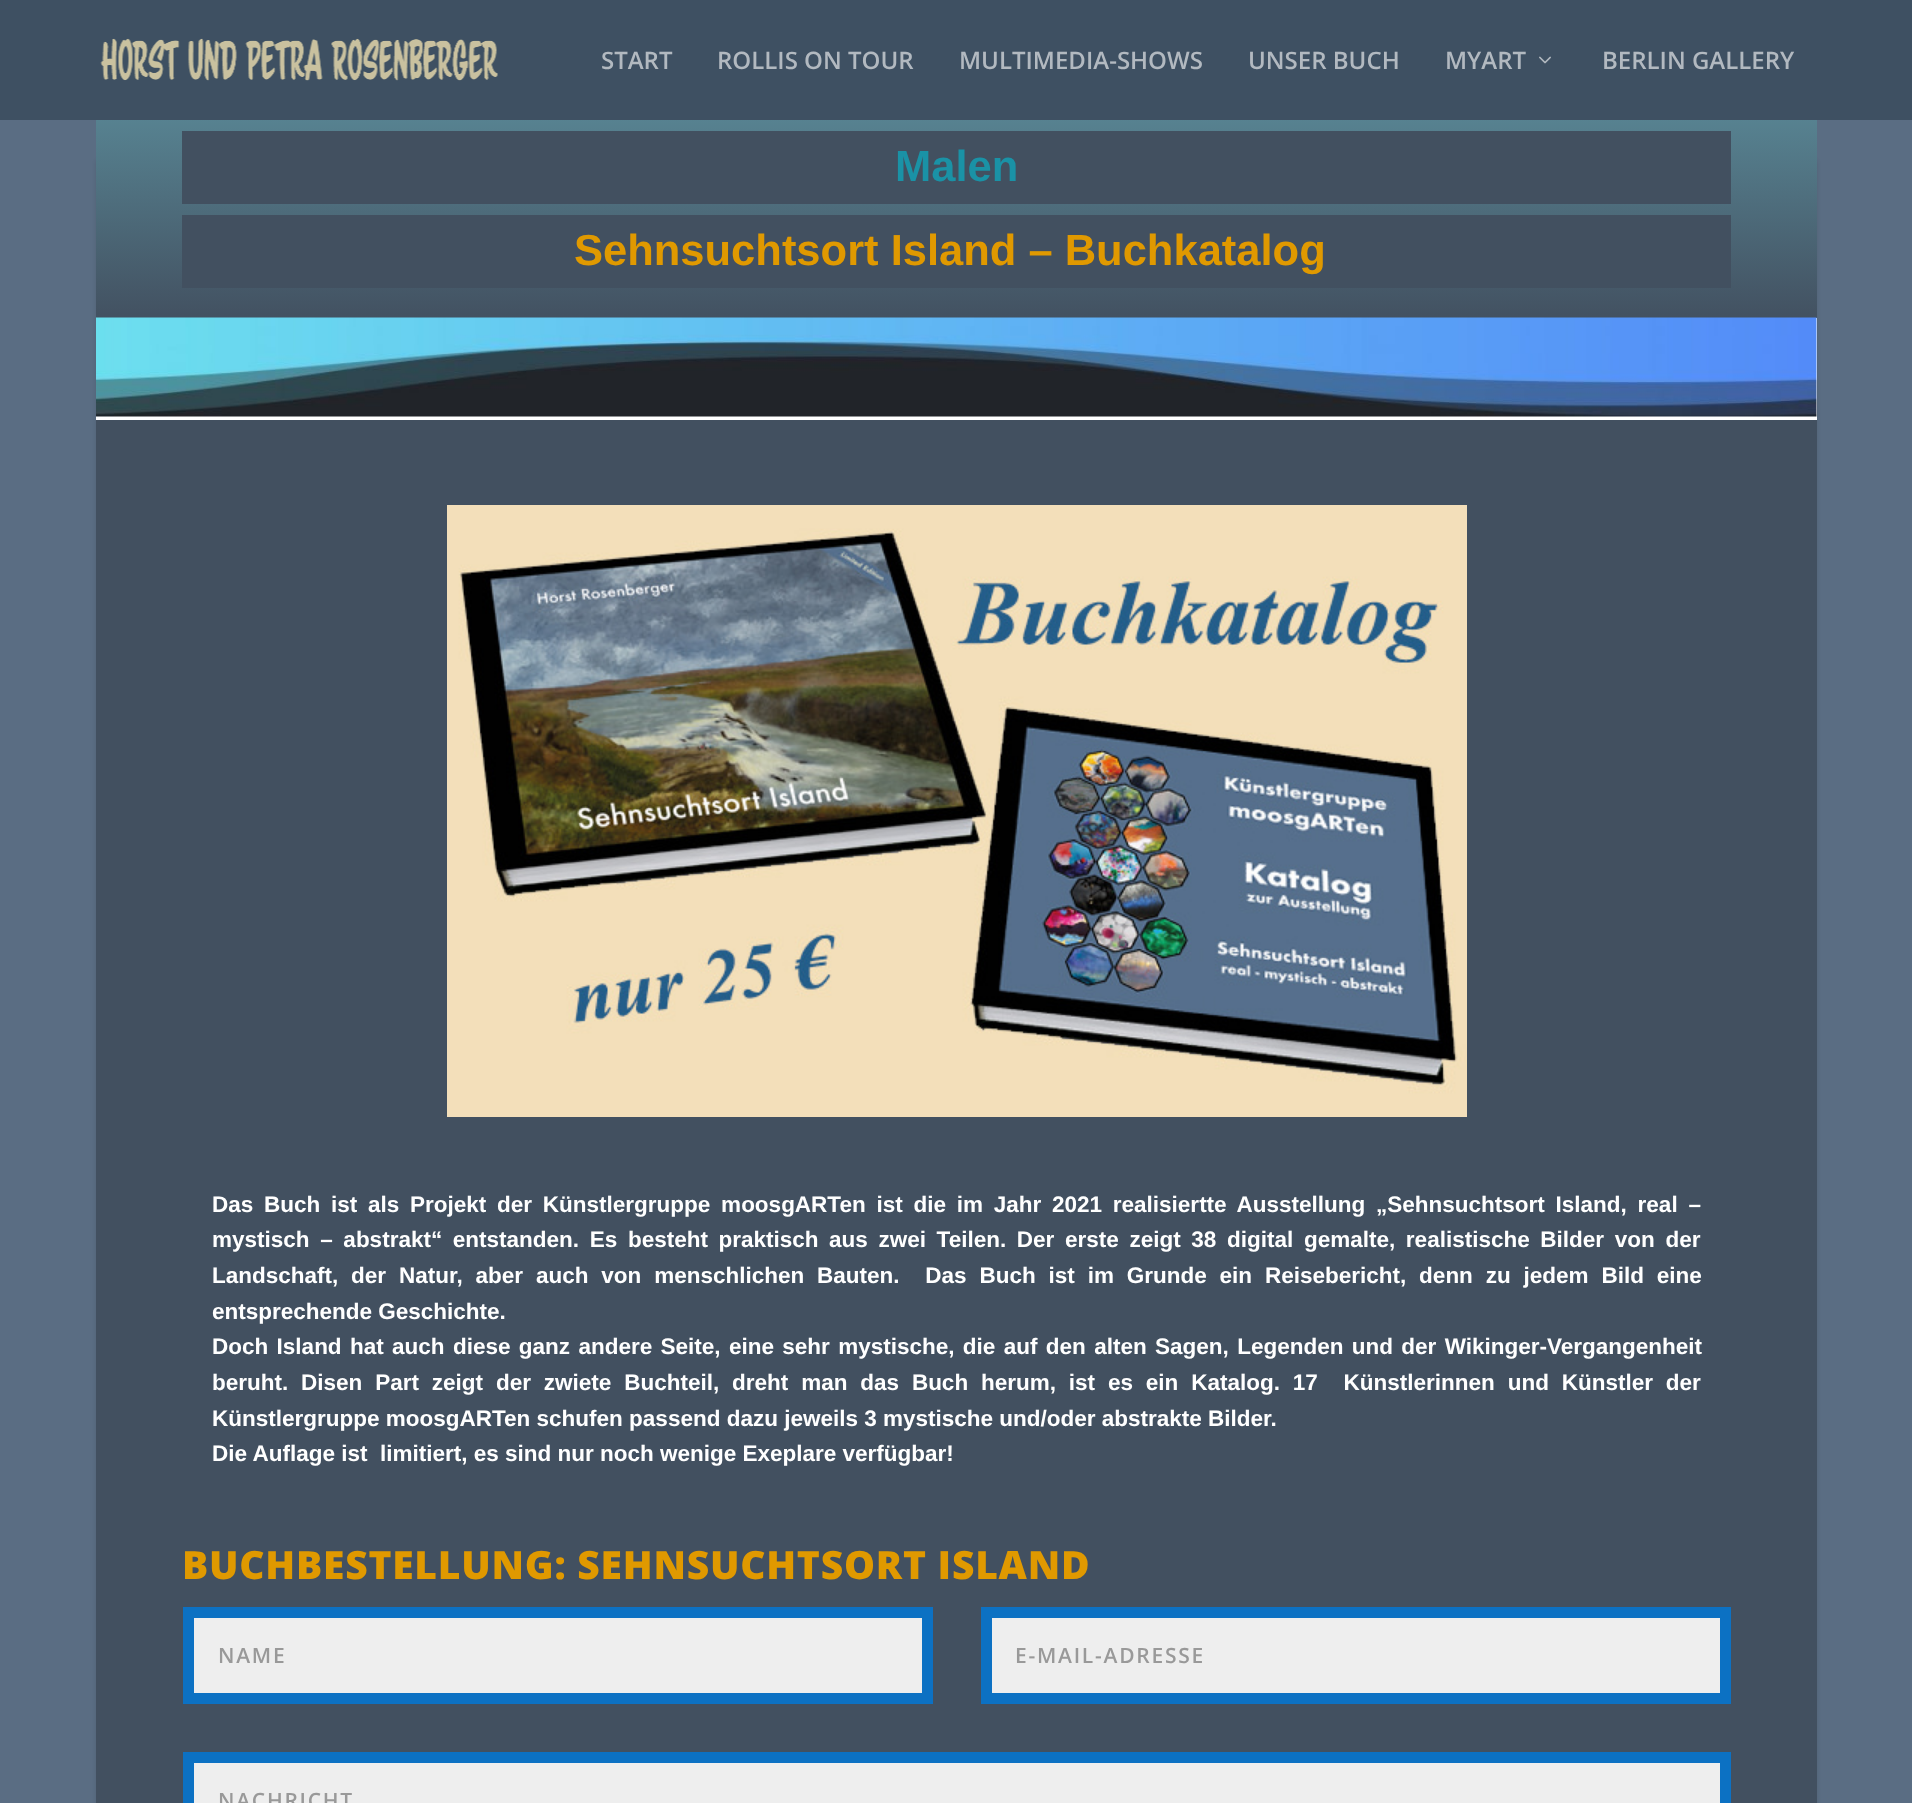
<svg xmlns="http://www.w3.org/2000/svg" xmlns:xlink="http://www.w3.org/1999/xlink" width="1912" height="1803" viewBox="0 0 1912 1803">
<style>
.cls-1{font:600 24px Open Sans;fill:#b2b9c0}
.cls-2{font:bold 43.5px Liberation Sans;fill:#1a92a6}
.cls-3{font:bold 43.5px Liberation Sans;fill:#e09900}
.cls-4{font:bold 22.5px Liberation Sans;fill:#ffffff}
.cls-5{font:800 39px Open Sans;letter-spacing:0.75px;fill:#e09900}
.cls-6{font:600 21px Open Sans;letter-spacing:1.75px;fill:#999999}
</style>
<defs>
<linearGradient id="g1" gradientUnits="userSpaceOnUse" x1="956" y1="57" x2="956" y2="323"><stop offset="0" stop-color="#5d919f"/><stop offset="1" stop-color="#425060"/></linearGradient>
</defs>
<rect width="100%" height="100%" fill="#5a6d83"/>
<rect fill="#3e5062" x="0" y="0" width="1912" height="120"/>
<image xlink:href="image0.png" x="100" y="38" width="398" height="43"/>
<image xlink:href="image1.png" x="1539" y="56" width="12" height="8"/>
<rect fill="#000000" fill-opacity="0.1" filter="blur(2px)" x="96" y="159" width="1721" height="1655" rx="5"/>
<rect fill="url(#g1)" x="96" y="120" width="1721" height="198"/>
<rect fill="#425060" x="182" y="131" width="1549" height="73"/>
<rect fill="#425060" x="182" y="215" width="1549" height="73"/>
<rect fill="#ffffff" x="96" y="318" width="1721" height="102"/>
<image xlink:href="image2.png" x="96" y="317" width="1721" height="100"/>
<rect fill="#425060" x="96" y="420" width="1721" height="1383"/>
<image xlink:href="image3.png" x="447" y="505" width="1020" height="612"/>
<rect fill="#eeeeee" stroke="#0c71c3" stroke-width="11" x="188.5" y="1612.5" width="739" height="86"/>
<rect fill="#eeeeee" stroke="#0c71c3" stroke-width="11" x="986.5" y="1612.5" width="739" height="86"/>
<rect fill="#eeeeee" stroke="#0c71c3" stroke-width="11" x="188.5" y="1757.5" width="1537" height="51"/>
<text class="cls-1" x="601" y="69">START</text>
<text class="cls-1" x="717" y="69">ROLLIS ON TOUR</text>
<text class="cls-1" x="959" y="69">MULTIMEDIA-SHOWS</text>
<text class="cls-1" x="1248" y="69">UNSER BUCH</text>
<text class="cls-1" x="1445" y="69">MYART</text>
<text class="cls-1" x="1602" y="69">BERLIN GALLERY</text>
<text class="cls-2" x="895" y="181">Malen</text>
<text class="cls-3" x="574" y="265">Sehnsuchtsort Island – Buchkatalog</text>
<text class="cls-4"><tspan x="212" y="1212" word-spacing="4.5">Das Buch ist als Projekt der Künstlergruppe moosgARTen ist die im Jahr 2021 realisiertte Ausstellung „Sehnsuchtsort Island, real –</tspan><tspan x="212" y="1247" word-spacing="4.4">mystisch – abstrakt“ entstanden. Es besteht praktisch</tspan></text>
<text class="cls-4" x="829" y="1247" word-spacing="4.4">aus zwei Teilen. Der erste zeigt 38 digital gemalte, realistische Bilder von der</text>
<text class="cls-4" xml:space="preserve"><tspan x="212" y="1283" word-spacing="6.6">Landschaft, der Natur, aber auch von menschlichen Bauten.  Das Buch ist im Grunde ein Reisebericht, denn zu jedem Bild eine</tspan><tspan x="212" y="1319">entsprechende Geschichte.</tspan><tspan x="212" y="1354" word-spacing="2.1">Doch Island hat auch diese ganz andere Seite, eine sehr mystische, die auf den alten Sagen, Legenden und der Wikinger-Vergangenheit</tspan><tspan x="212" y="1390" word-spacing="6.6">beruht. Disen Part zeigt der zwiete Buchteil, dreht man das Buch herum, ist es ein Katalog. 17  Künstlerinnen und Künstler der</tspan><tspan x="212" y="1426">Künstlergruppe moosgARTen schufen passend dazu jeweils 3 mystische und/oder abstrakte Bilder.</tspan><tspan x="212" y="1461">Die Auflage ist  limitiert, es sind nur noch wenige Exeplare verfügbar!</tspan></text>
<text class="cls-5" x="182" y="1579">BUCHBESTELLUNG: SEHNSUCHTSORT ISLAND</text>
<text class="cls-6" x="218" y="1663">NAME</text>
<text class="cls-6" x="1015" y="1663">E-MAIL-ADRESSE</text>
<text class="cls-6" x="218" y="1808">NACHRICHT</text>
</svg>
